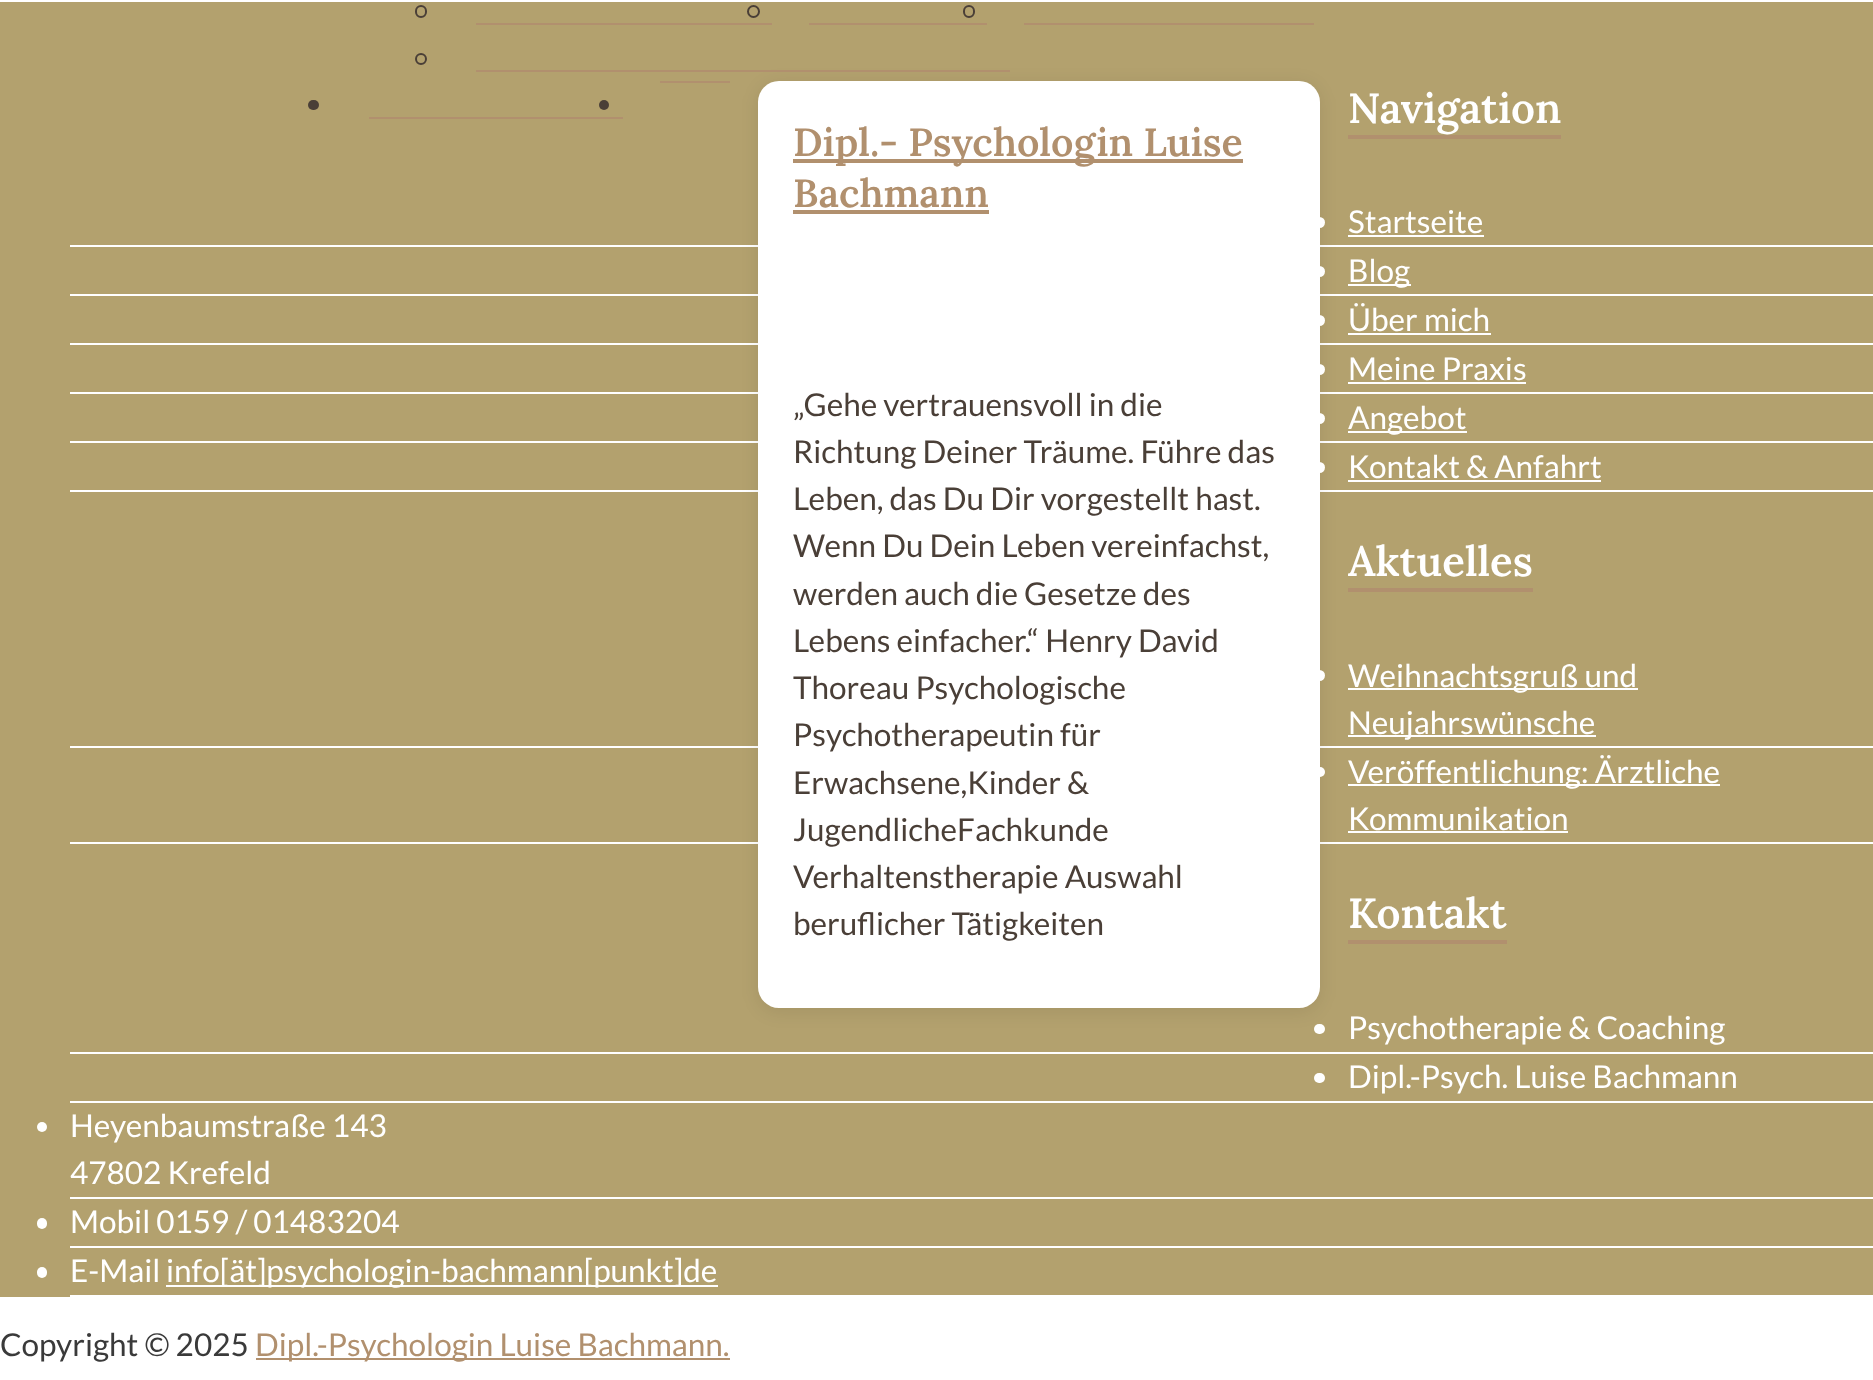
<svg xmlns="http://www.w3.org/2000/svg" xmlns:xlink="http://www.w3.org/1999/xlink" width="1873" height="1380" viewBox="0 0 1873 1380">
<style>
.cls-1{font:600 42px Lora;fill:#ffffff}
.cls-2{font:31.5px Lato;fill:#ffffff}
.cls-3{font:31.5px Lato;fill:#3a3a3a}
.cls-4{font:31.5px Lato;fill:#b1906e}
.cls-5{font:600 39.25px Lora;fill:#b1906e}
.cls-6{font:31.5px Lato;fill:#4a3f37}
</style>
<rect width="100%" height="100%" fill="#ffffff"/>
<rect fill="#b3a16e" x="0" y="2" width="1873" height="1295"/>
<rect fill="none" stroke="#4a3f37" stroke-width="2" x="416" y="6" width="10" height="11" rx="5"/>
<rect fill="#b1906e" x="476" y="23" width="296" height="2"/>
<circle fill="none" stroke="#4a3f37" stroke-width="2" cx="753.5" cy="11.5" r="5.5"/>
<rect fill="#b1906e" x="809" y="23" width="178" height="2"/>
<rect fill="none" stroke="#4a3f37" stroke-width="2" x="964" y="6" width="10" height="11" rx="5"/>
<rect fill="#b1906e" x="1024" y="23" width="290" height="2"/>
<circle fill="none" stroke="#4a3f37" stroke-width="2" cx="421" cy="59" r="5"/>
<rect fill="#ffffff" x="70" y="245" width="1803" height="2"/>
<rect fill="#ffffff" x="70" y="294" width="1803" height="2"/>
<rect fill="#ffffff" x="70" y="343" width="1803" height="2"/>
<rect fill="#ffffff" x="70" y="392" width="1803" height="2"/>
<rect fill="#ffffff" x="70" y="441" width="1803" height="2"/>
<rect fill="#ffffff" x="70" y="490" width="1803" height="2"/>
<rect fill="#ffffff" x="70" y="746" width="1803" height="2"/>
<rect fill="#ffffff" x="70" y="842" width="1803" height="2"/>
<rect fill="#000000" fill-opacity="0.08" filter="blur(9px)" x="758" y="84" width="562" height="928" rx="21"/>
<rect fill="#b1906e" x="476" y="70" width="534" height="2"/>
<rect fill="#4a3f37" x="308" y="100" width="11" height="10" rx="5"/>
<rect fill="#b1906e" x="369" y="117" width="254" height="2"/>
<rect fill="#b1906e" x="660" y="81" width="70" height="2"/>
<circle fill="#4a3f37" cx="604" cy="105" r="5"/>
<rect fill="#b1906e" x="1348" y="135" width="213" height="4"/>
<rect fill="#ffffff" x="758" y="81" width="562" height="927" rx="21"/>
<circle fill="#ffffff" cx="1319.5" cy="222.5" r="5.5"/>
<rect fill="#ffffff" x="1348" y="235" width="136" height="2"/>
<circle fill="#ffffff" cx="1319.5" cy="271.5" r="5.5"/>
<rect fill="#ffffff" x="1348" y="284" width="63" height="2"/>
<circle fill="#ffffff" cx="1319.5" cy="320.5" r="5.5"/>
<rect fill="#ffffff" x="1348" y="333" width="143" height="2"/>
<circle fill="#ffffff" cx="1319.5" cy="369.5" r="5.5"/>
<rect fill="#ffffff" x="1348" y="382" width="178" height="2"/>
<circle fill="#ffffff" cx="1319.5" cy="418.5" r="5.5"/>
<rect fill="#ffffff" x="1348" y="431" width="119" height="2"/>
<circle fill="#ffffff" cx="1319.5" cy="467.5" r="5.5"/>
<rect fill="#ffffff" x="1348" y="480" width="253" height="2"/>
<rect fill="#b1906e" x="1348" y="588" width="185" height="4"/>
<circle fill="#ffffff" cx="1319.5" cy="675.5" r="5.5"/>
<rect fill="#ffffff" x="1348" y="688" width="290" height="2"/>
<rect fill="#ffffff" x="1348" y="735" width="248" height="2"/>
<rect fill="#ffffff" x="1314" y="767" width="11" height="10" rx="5"/>
<rect fill="#ffffff" x="1348" y="784" width="372" height="2"/>
<rect fill="#ffffff" x="1348" y="831" width="220" height="2"/>
<rect fill="#b1906e" x="1348" y="940" width="159" height="4"/>
<rect fill="#ffffff" x="70" y="1052" width="1803" height="2"/>
<rect fill="#ffffff" x="1314" y="1024" width="11" height="10" rx="5"/>
<rect fill="#ffffff" x="70" y="1101" width="1803" height="2"/>
<rect fill="#ffffff" x="1314" y="1073" width="11" height="10" rx="5"/>
<rect fill="#ffffff" x="70" y="1197" width="1803" height="2"/>
<circle fill="#ffffff" cx="42" cy="1127" r="5"/>
<rect fill="#ffffff" x="70" y="1246" width="1803" height="2"/>
<rect fill="#ffffff" x="37" y="1218" width="10" height="11" rx="5"/>
<rect fill="#ffffff" x="70" y="1295" width="1803" height="2"/>
<rect fill="#ffffff" x="37" y="1267" width="10" height="11" rx="5"/>
<rect fill="#ffffff" x="166" y="1285" width="552" height="2"/>
<rect fill="#b1906e" x="256" y="1358" width="474" height="2"/>
<rect fill="#b1906e" x="793" y="159" width="450" height="4"/>
<rect fill="#b1906e" x="793" y="210" width="196" height="4"/>
<text class="cls-1" x="1348" y="123">Navigation</text>
<text class="cls-2"><tspan x="1348" y="233">Startseite</tspan><tspan x="1348" y="282">Blog</tspan><tspan x="1348" y="331">Über mich</tspan><tspan x="1348" y="380">Meine Praxis</tspan><tspan x="1348" y="429">Angebot</tspan><tspan x="1348" y="478">Kontakt &amp; Anfahrt</tspan></text>
<text class="cls-1" x="1348" y="576">Aktuelles</text>
<text class="cls-2"><tspan x="1348" y="687">Weihnachtsgruß und</tspan><tspan x="1348" y="734">Neujahrswünsche</tspan><tspan x="1348" y="783">Veröffentlichung: Ärztliche</tspan><tspan x="1348" y="830">Kommunikation</tspan></text>
<text class="cls-1" x="1348" y="928">Kontakt</text>
<text class="cls-2"><tspan x="1348" y="1039">Psychotherapie &amp; Coaching</tspan><tspan x="1348" y="1088">Dipl.-Psych. Luise Bachmann</tspan></text>
<text class="cls-2"><tspan x="70" y="1137">Heyenbaumstraße 143</tspan><tspan x="70" y="1184">47802 Krefeld</tspan><tspan x="70" y="1233">Mobil 0159 / 01483204</tspan><tspan x="70" y="1282">E-Mail</tspan></text>
<text class="cls-2" x="166" y="1282">info[ät]psychologin-bachmann[punkt]de</text>
<text class="cls-3" x="0" y="1356">Copyright © 2025</text>
<text class="cls-4" x="255" y="1356">Dipl.-Psychologin Luise Bachmann.</text>
<text class="cls-5"><tspan x="793" y="156">Dipl.- Psychologin Luise</tspan><tspan x="793" y="207">Bachmann</tspan></text>
<text class="cls-6"><tspan x="793" y="416">„Gehe vertrauensvoll in die</tspan><tspan x="793" y="463">Richtung Deiner Träume. Führe das</tspan><tspan x="793" y="510">Leben, das Du Dir vorgestellt hast.</tspan><tspan x="793" y="557">Wenn Du Dein Leben vereinfachst,</tspan><tspan x="793" y="605">werden auch die Gesetze des</tspan><tspan x="793" y="652">Lebens einfacher.“ Henry David</tspan><tspan x="793" y="699">Thoreau Psychologische</tspan><tspan x="793" y="746">Psychotherapeutin für</tspan><tspan x="793" y="794">Erwachsene,Kinder &amp;</tspan><tspan x="793" y="841">JugendlicheFachkunde</tspan><tspan x="793" y="888">Verhaltenstherapie Auswahl</tspan><tspan x="793" y="935">beruflicher Tätigkeiten</tspan></text>
</svg>
